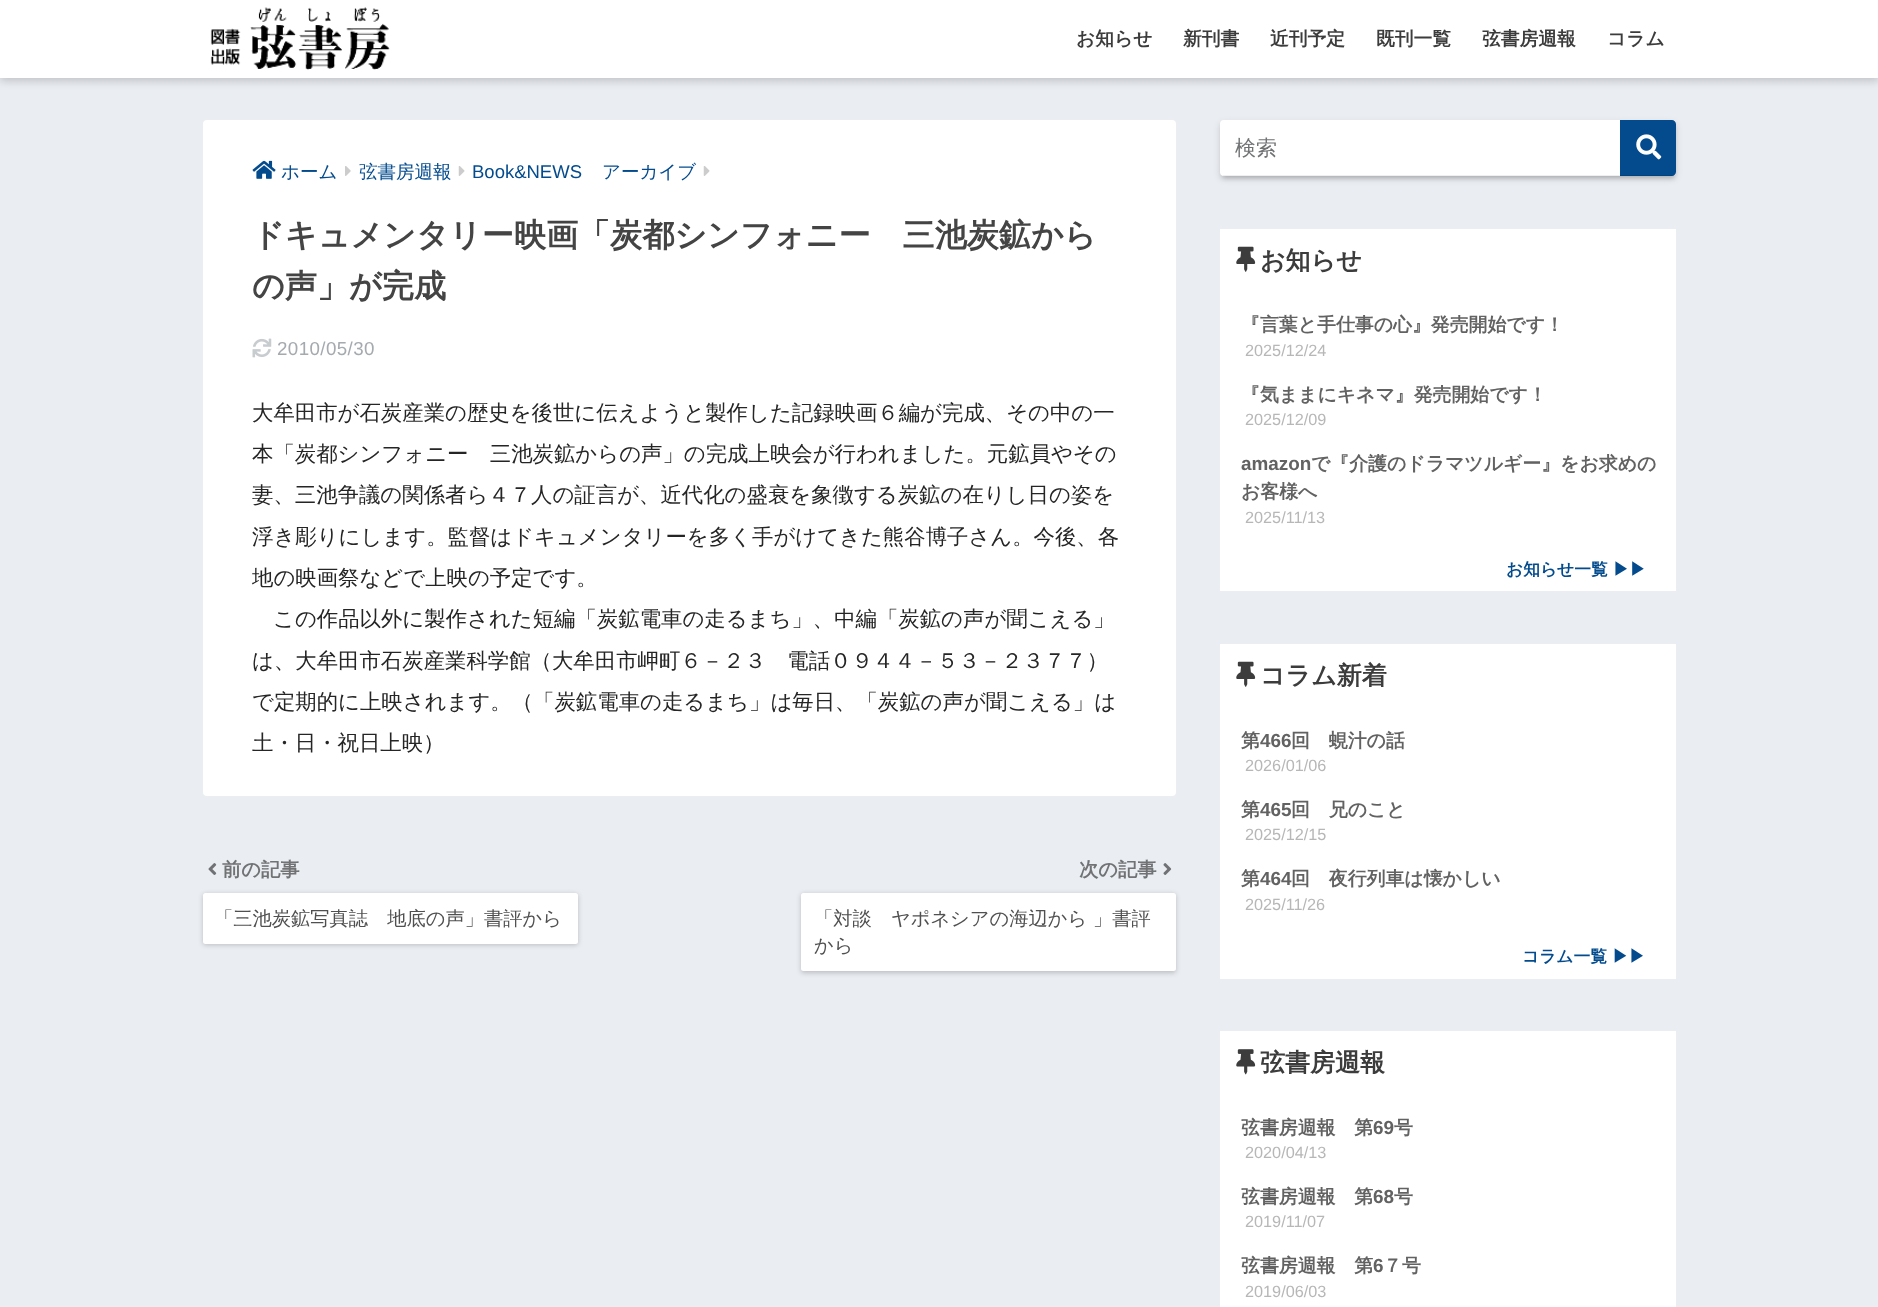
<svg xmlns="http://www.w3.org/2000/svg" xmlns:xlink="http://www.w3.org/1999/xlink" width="1878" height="1307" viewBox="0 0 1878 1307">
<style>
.cls-1{font:bold 18.75px WenQuanYi Zen Hei;fill:#3c3c3c}
.cls-2{font:500 18.5px WenQuanYi Zen Hei;fill:#034b8d}
.cls-3{font:18.5px Liberation Sans;fill:#034b8d}
.cls-4{font:bold 32.1px WenQuanYi Zen Hei;fill:#444444}
.cls-5{font:18.75px Liberation Sans;letter-spacing:0.4px;fill:#a5aaaf}
.cls-6{font:500 21.4px WenQuanYi Zen Hei;fill:#252525}
.cls-7{font:bold 19.25px WenQuanYi Zen Hei;fill:#707274}
.cls-8{font:500 19.25px WenQuanYi Zen Hei;fill:#505050}
.cls-9{font:500 21px WenQuanYi Zen Hei;fill:#707274}
.cls-10{font:bold 25px WenQuanYi Zen Hei;fill:#3c3c3c}
.cls-11{font:bold 18.9px WenQuanYi Zen Hei;fill:#626262}
.cls-12{font:16.25px Liberation Sans;fill:#b7b7b7}
.cls-13{font:bold 18.9px Liberation Sans;fill:#626262}
.cls-14{font:bold 16.75px WenQuanYi Zen Hei;fill:#034b8d}
</style>
<rect width="100%" height="100%" fill="#eaedf2"/>
<rect fill="#000000" fill-opacity="0.18" filter="blur(4px)" x="0" y="4" width="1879" height="77"/>
<rect fill="#ffffff" x="0" y="0" width="1878" height="78"/>
<image xlink:href="image0.png" x="210" y="7" width="180" height="63"/>
<rect fill="#ffffff" x="203" y="120" width="973" height="676" rx="4"/>
<image xlink:href="image1.png" x="252" y="160" width="24" height="19"/>
<image xlink:href="image2.png" x="345" y="166" width="6" height="10"/>
<image xlink:href="image3.png" x="458" y="166" width="7" height="10"/>
<image xlink:href="image3.png" x="703" y="166" width="7" height="10"/>
<image xlink:href="image4.png" x="252" y="338" width="20" height="20"/>
<image xlink:href="image5.png" x="208" y="863" width="9" height="12"/>
<rect fill="#000000" fill-opacity="0.2" filter="blur(2.5px)" x="203" y="894" width="375" height="51" rx="2.5"/>
<rect fill="#ffffff" x="203" y="893" width="375" height="51" rx="2.5"/>
<image xlink:href="image6.png" x="1163" y="863" width="9" height="12"/>
<rect fill="#000000" fill-opacity="0.2" filter="blur(2.5px)" x="801" y="894" width="375" height="79" rx="2.5"/>
<rect fill="#ffffff" x="801" y="893" width="375" height="78" rx="2.5"/>
<rect fill="#000000" fill-opacity="0.15" filter="blur(2px)" x="1223" y="126" width="451" height="52" rx="1"/>
<rect fill="#000000" fill-opacity="0.15" filter="blur(3px)" x="1220" y="123" width="456" height="56" rx="4"/>
<rect fill="#ffffff" x="1220" y="120" width="456" height="56" rx="4"/>
<rect fill="#efefef" x="1223" y="175" width="452" height="1"/>
<path fill="#034b8d" d="M1620 120H1672C1674 120 1676 122 1676 124V172C1676 174 1674 176 1672 176H1620Z"/>
<rect fill="#000000" fill-opacity="0.1" x="1620" y="175" width="55" height="1"/>
<image xlink:href="image7.png" x="1636" y="134" width="26" height="26"/>
<rect fill="#ffffff" x="1220" y="229" width="456" height="362"/>
<image xlink:href="image8.png" x="1236" y="246" width="20" height="26"/>
<rect fill="#ffffff" x="1220" y="644" width="456" height="335"/>
<image xlink:href="image8.png" x="1236" y="661" width="20" height="26"/>
<rect fill="#ffffff" x="1220" y="1031" width="456" height="276"/>
<image xlink:href="image9.png" x="1236" y="1049" width="20" height="26"/>
<text class="cls-1" x="1076" y="45">お知らせ</text>
<text class="cls-1" x="1183" y="45">新刊書</text>
<text class="cls-1" x="1270" y="45">近刊予定</text>
<text class="cls-1" x="1376" y="45">既刊一覧</text>
<text class="cls-1" x="1482" y="45">弦書房週報</text>
<text class="cls-1" x="1607" y="45">コラム</text>
<text class="cls-2" x="281" y="178">ホーム</text>
<text class="cls-2" x="359" y="178">弦書房週報</text>
<text class="cls-3" x="472" y="178">Book&amp;NEWS</text>
<text class="cls-2" x="602" y="178">アーカイブ</text>
<text class="cls-4"><tspan x="252" y="246">ドキュメンタリー映画「炭都シンフォニー　三池炭鉱から</tspan><tspan x="252" y="297">の声」が完成</tspan></text>
<text class="cls-5" x="277" y="355">2010/05/30</text>
<text class="cls-6"><tspan x="252" y="420">大牟田市が石炭産業の歴史を後世に伝えようと製作した記録映画６編が完成、その中の一</tspan><tspan x="252" y="461">本「炭都シンフォニー　三池炭鉱からの声」の完成上映会が行われました。元鉱員やその</tspan><tspan x="252" y="502">妻、三池争議の関係者ら４７人の証言が、近代化の盛衰を象徴する炭鉱の在りし日の姿を</tspan><tspan x="252" y="544">浮き彫りにします。監督はドキュメンタリーを多く手がけてきた熊谷博子さん。今後、各</tspan><tspan x="252" y="585">地の映画祭などで上映の予定です。</tspan></text>
<text class="cls-6" x="273" y="626">この作品以外に製作された短編「炭鉱電車の走るまち」、中編「炭鉱の声が聞こえる」</text>
<text class="cls-6"><tspan x="252" y="668">は、大牟田市石炭産業科学館（大牟田市岬町６－２３　電話０９４４－５３－２３７７）</tspan><tspan x="252" y="709">で定期的に上映されます。（「炭鉱電車の走るまち」は毎日、「炭鉱の声が聞こえる」は</tspan><tspan x="252" y="750">土・日・祝日上映）</tspan></text>
<text class="cls-7" x="222" y="876">前の記事</text>
<text class="cls-8" x="214" y="925">「三池炭鉱写真誌　地底の声」書評から</text>
<text class="cls-7" x="1079" y="876">次の記事</text>
<text class="cls-8"><tspan x="814" y="925">「対談　ヤポネシアの海辺から 」書評</tspan><tspan x="814" y="952">から</tspan></text>
<text class="cls-9" x="1235" y="155">検索</text>
<text class="cls-10" x="1260" y="269">お知らせ</text>
<text class="cls-11" x="1241" y="331">『言葉と手仕事の心』発売開始です！</text>
<text class="cls-12" x="1245" y="356">2025/12/24</text>
<text class="cls-11" x="1241" y="401">『気ままにキネマ』発売開始です！</text>
<text class="cls-12" x="1245" y="425">2025/12/09</text>
<text class="cls-13" x="1241" y="470">amazon</text>
<text class="cls-11" x="1311" y="470">で『介護のドラマツルギー』をお求めの</text>
<text class="cls-11" x="1241" y="498">お客様へ</text>
<text class="cls-12" x="1245" y="523">2025/11/13</text>
<text class="cls-14" x="1506" y="575">お知らせ一覧 ▶▶</text>
<text class="cls-10" x="1260" y="684">コラム新着</text>
<text class="cls-11" x="1241" y="747">第</text>
<text class="cls-13" x="1260" y="747">466</text>
<text class="cls-11" x="1291" y="747">回　蜆汁の話</text>
<text class="cls-12" x="1245" y="771">2026/01/06</text>
<text class="cls-11" x="1241" y="816">第</text>
<text class="cls-13" x="1260" y="816">465</text>
<text class="cls-11" x="1291" y="816">回　兄のこと</text>
<text class="cls-12" x="1245" y="840">2025/12/15</text>
<text class="cls-11" x="1241" y="885">第</text>
<text class="cls-13" x="1260" y="885">464</text>
<text class="cls-11" x="1291" y="885">回　夜行列車は懐かしい</text>
<text class="cls-12" x="1245" y="910">2025/11/26</text>
<text class="cls-14" x="1522" y="962">コラム一覧 ▶▶</text>
<text class="cls-10" x="1260" y="1071">弦書房週報</text>
<text class="cls-11" x="1241" y="1134">弦書房週報　第</text>
<text class="cls-13" x="1373" y="1134">69</text>
<text class="cls-11" x="1394" y="1134">号</text>
<text class="cls-12" x="1245" y="1158">2020/04/13</text>
<text class="cls-11" x="1241" y="1203">弦書房週報　第</text>
<text class="cls-13" x="1373" y="1203">68</text>
<text class="cls-11" x="1394" y="1203">号</text>
<text class="cls-12" x="1245" y="1227">2019/11/07</text>
<text class="cls-11" x="1241" y="1272">弦書房週報　第</text>
<text class="cls-13" x="1373" y="1272">6</text>
<text class="cls-11" x="1383" y="1272">７号</text>
<text class="cls-12" x="1245" y="1297">2019/06/03</text>
</svg>
